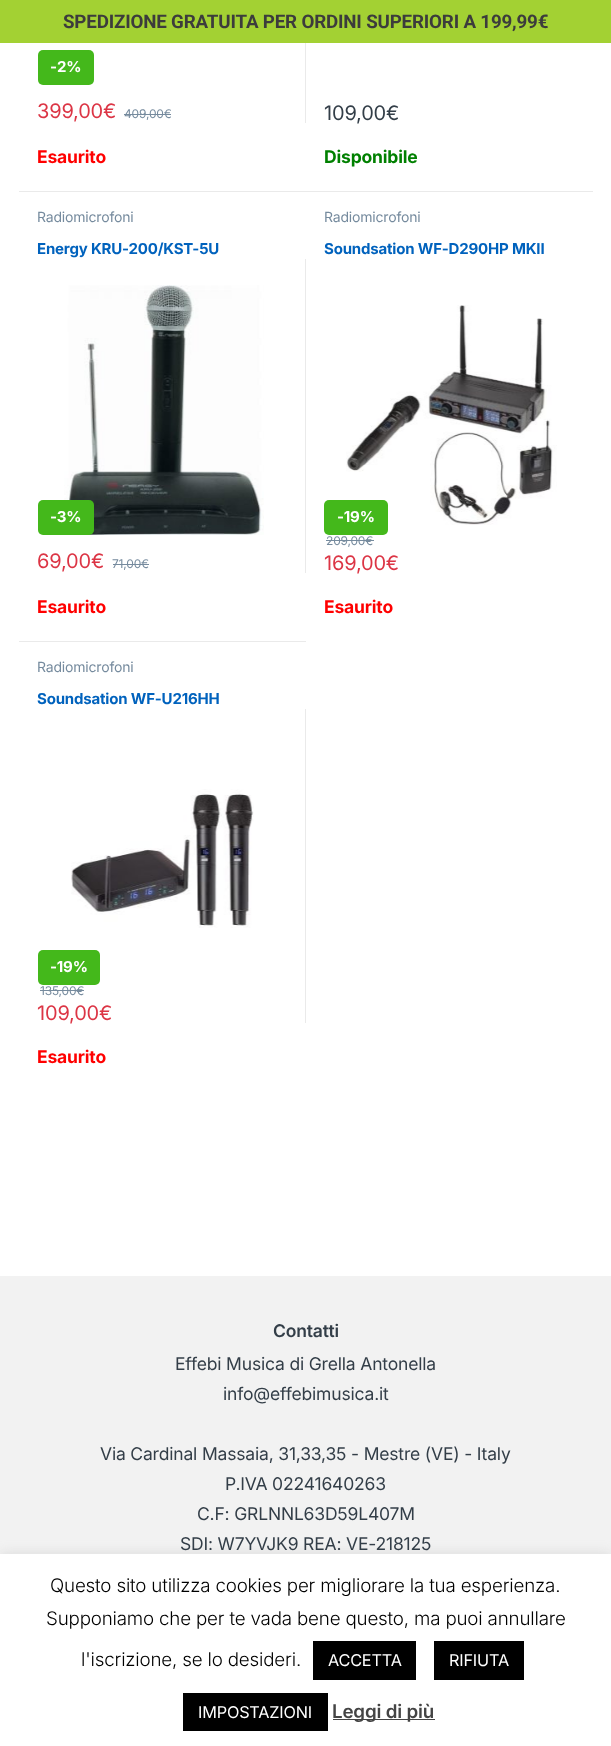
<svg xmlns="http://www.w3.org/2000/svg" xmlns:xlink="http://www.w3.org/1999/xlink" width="611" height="1746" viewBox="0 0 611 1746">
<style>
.cls-1{font:bold 18.75px Roboto;letter-spacing:-0.18px;fill:#3c3c3c}
.cls-2{font:bold 15px Inter;letter-spacing:-0.18px;fill:#ffffff}
.cls-3{font:20px Inter;letter-spacing:-0.18px;fill:#dc3545}
.cls-4{font:12px Inter;letter-spacing:-0.18px;fill:#768b9e}
.cls-5{font:bold 17.5px Inter;letter-spacing:-0.18px;fill:#ff0000}
.cls-6{font:20px Inter;letter-spacing:-0.18px;fill:#333e48}
.cls-7{font:bold 17.5px Inter;letter-spacing:-0.18px;fill:#008000}
.cls-8{font:14px Inter;letter-spacing:-0.18px;fill:#768b9e}
.cls-9{font:bold 15px Inter;letter-spacing:-0.18px;fill:#0062bd}
.cls-10{font:600 17.5px Inter;letter-spacing:-0.18px;fill:#333e48}
.cls-11{font:17.5px Inter;letter-spacing:-0.18px;fill:#333e48}
.cls-12{font:300 18.75px Inter;letter-spacing:-0.18px;fill:#000000}
.cls-13{font:16.25px Inter;letter-spacing:-0.18px;fill:#ffffff}
.cls-14{font:600 18.75px Inter;letter-spacing:-0.18px;fill:#444444}
</style>
<rect width="100%" height="100%" fill="#ffffff"/>
<rect fill="#a3d133" x="0" y="0" width="611" height="43"/>
<rect fill="#eaeaea" x="19" y="191" width="574" height="1"/>
<rect fill="#44b81b" x="38" y="50" width="56" height="35" rx="5"/>
<rect fill="#768b9e" x="124" y="114" width="47" height="1"/>
<rect fill="#eaeaea" x="305" y="43" width="1" height="80"/>
<rect fill="#eaeaea" x="19" y="641" width="287" height="1"/>
<image xlink:href="image0.png" x="64" y="285" width="200" height="250"/>
<rect fill="#44b81b" x="38" y="500" width="56" height="35" rx="5"/>
<rect fill="#768b9e" x="113" y="564" width="36" height="1"/>
<rect fill="#eaeaea" x="305" y="259" width="1" height="314"/>
<image xlink:href="image1.png" x="346" y="305" width="211" height="220"/>
<rect fill="#44b81b" x="324" y="500" width="64" height="35" rx="5"/>
<rect fill="#768b9e" x="326" y="540" width="48" height="1"/>
<image xlink:href="image2.png" x="71" y="789" width="183" height="139"/>
<rect fill="#44b81b" x="38" y="950" width="62" height="35" rx="5"/>
<rect fill="#768b9e" x="40" y="990" width="44" height="1"/>
<rect fill="#eaeaea" x="305" y="709" width="1" height="314"/>
<rect fill="#f2f2f2" x="0" y="1276" width="611" height="278"/>
<rect fill="#acabab" fill-opacity="0.3" filter="blur(6px)" x="0" y="1553" width="611" height="192"/>
<rect fill="#ffffff" x="0" y="1554" width="611" height="192"/>
<rect fill="#000000" x="313" y="1641" width="103" height="39"/>
<rect fill="#000000" x="434" y="1641" width="90" height="39"/>
<rect fill="#000000" x="183" y="1693" width="145" height="38"/>
<rect fill="#444444" x="333" y="1719" width="102" height="1"/>
<text class="cls-1" x="63" y="28">SPEDIZIONE GRATUITA PER ORDINI SUPERIORI A 199,99€</text>
<text class="cls-2" x="50" y="72">-</text>
<text class="cls-2" x="57" y="72">2%</text>
<text class="cls-3" x="37" y="118">399,00€</text>
<text class="cls-4" x="124" y="118">409,00€</text>
<text class="cls-5" x="37" y="163">Esaurito</text>
<text class="cls-6" x="324" y="120">109,00€</text>
<text class="cls-7" x="324" y="163">Disponibile</text>
<text class="cls-8" x="37" y="222">Radiomicrofoni</text>
<text class="cls-9" x="37" y="254">Energy KRU-200/KST-5U</text>
<text class="cls-2" x="50" y="522">-3%</text>
<text class="cls-3" x="37" y="568">69,00€</text>
<text class="cls-4" x="112" y="568">71,00€</text>
<text class="cls-5" x="37" y="613">Esaurito</text>
<text class="cls-8" x="324" y="222">Radiomicrofoni</text>
<text class="cls-9" x="324" y="254">Soundsation WF-D290HP MKII</text>
<text class="cls-2" x="337" y="522">-19%</text>
<text class="cls-4" x="326" y="545">209,00€</text>
<text class="cls-3" x="324" y="570">169,00€</text>
<text class="cls-5" x="324" y="613">Esaurito</text>
<text class="cls-8" x="37" y="672">Radiomicrofoni</text>
<text class="cls-9" x="37" y="704">Soundsation WF-U216HH</text>
<text class="cls-2" x="50" y="972">-19%</text>
<text class="cls-4" x="40" y="995">135,00€</text>
<text class="cls-3" x="37" y="1020">109,00€</text>
<text class="cls-5" x="37" y="1063">Esaurito</text>
<text class="cls-10" x="273" y="1337">Contatti</text>
<text class="cls-11" x="175" y="1370">Effebi Musica di Grella Antonella</text>
<text class="cls-11" x="223" y="1400">info@effebimusica.it</text>
<text class="cls-11" x="100" y="1460">Via Cardinal Massaia, 31,33,35 - Mestre (VE) - Italy</text>
<text class="cls-11" x="225" y="1490">P.IVA 02241640263</text>
<text class="cls-11" x="197" y="1520">C.F: GRLNNL63D59L407M</text>
<text class="cls-11" x="180" y="1550">SDI: W7YVJK9 REA: VE-218125</text>
<text class="cls-12" x="50" y="1592">Questo sito utilizza cookies per migliorare la tua esperienza.</text>
<text class="cls-12" x="46" y="1625">Supponiamo che per te vada bene questo, ma puoi annullare</text>
<text class="cls-12" x="81" y="1666">l'iscrizione, se lo desideri.</text>
<text class="cls-13" x="328" y="1666">ACCETTA</text>
<text class="cls-13" x="449" y="1666">RIFIUTA</text>
<text class="cls-13" x="198" y="1718">IMPOSTAZIONI</text>
<text class="cls-14" x="332" y="1718">Leggi di più</text>
</svg>
